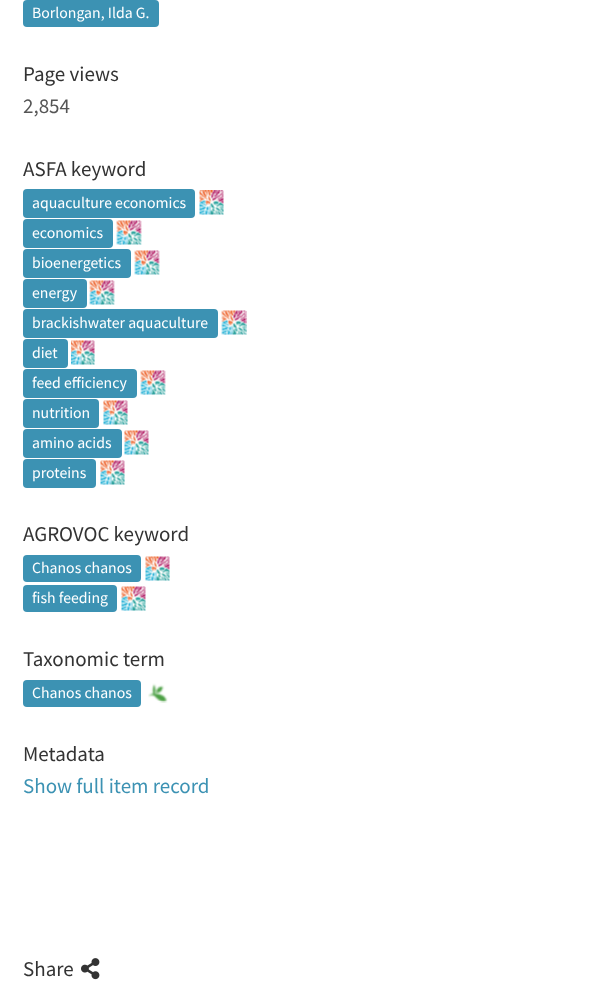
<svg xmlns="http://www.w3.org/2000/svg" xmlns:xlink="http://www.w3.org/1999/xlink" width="596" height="996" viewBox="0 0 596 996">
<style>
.cls-1{font:15.75px Source Sans Pro;fill:#ffffff}
.cls-2{font:21px Source Sans Pro;fill:#333333}
.cls-3{font:21px Source Sans Pro;fill:#555555}
.cls-4{font:21px Source Sans Pro;fill:#3c92b3}
</style>
<rect width="100%" height="100%" fill="#ffffff"/>
<rect fill="#3c92b3" x="23" y="0" width="136" height="27" rx="4"/>
<rect fill="#3c92b3" x="23" y="189" width="172" height="29" rx="4"/>
<image xlink:href="image0.png" x="199" y="190" width="25" height="25"/>
<rect fill="#3c92b3" x="23" y="219" width="90" height="29" rx="4"/>
<image xlink:href="image1.png" x="116" y="220" width="26" height="25"/>
<rect fill="#3c92b3" x="23" y="249" width="108" height="29" rx="4"/>
<image xlink:href="image1.png" x="134" y="250" width="26" height="25"/>
<rect fill="#3c92b3" x="23" y="279" width="64" height="29" rx="4"/>
<image xlink:href="image1.png" x="89" y="280" width="26" height="25"/>
<rect fill="#3c92b3" x="23" y="309" width="195" height="29" rx="4"/>
<image xlink:href="image2.png" x="221" y="310" width="26" height="25"/>
<rect fill="#3c92b3" x="23" y="339" width="45" height="29" rx="4"/>
<image xlink:href="image3.png" x="71" y="340" width="24" height="25"/>
<rect fill="#3c92b3" x="23" y="369" width="114" height="29" rx="4"/>
<image xlink:href="image1.png" x="140" y="370" width="26" height="25"/>
<rect fill="#3c92b3" x="23" y="399" width="76" height="29" rx="4"/>
<image xlink:href="image4.png" x="103" y="400" width="25" height="25"/>
<rect fill="#3c92b3" x="23" y="429" width="99" height="29" rx="4"/>
<image xlink:href="image4.png" x="124" y="430" width="25" height="25"/>
<rect fill="#3c92b3" x="23" y="459" width="73" height="29" rx="4"/>
<image xlink:href="image4.png" x="100" y="460" width="25" height="25"/>
<rect fill="#3c92b3" x="23" y="555" width="118" height="27" rx="4"/>
<image xlink:href="image4.png" x="145" y="556" width="25" height="25"/>
<rect fill="#3c92b3" x="23" y="585" width="94" height="27" rx="4"/>
<image xlink:href="image4.png" x="121" y="586" width="25" height="25"/>
<rect fill="#3c92b3" x="23" y="680" width="118" height="27" rx="4"/>
<image xlink:href="image5.png" x="148" y="683" width="20" height="20"/>
<image xlink:href="image6.png" x="81" y="958" width="19" height="22"/>
<text class="cls-1" x="32" y="18">Borlongan, Ilda G.</text>
<text class="cls-2" x="23" y="81">Page views</text>
<text class="cls-3" x="23" y="113">2,854</text>
<text class="cls-2" x="23" y="176">ASFA keyword</text>
<text class="cls-1"><tspan x="32" y="208">aquaculture economics</tspan><tspan x="32" y="238">economics</tspan><tspan x="32" y="268">bioenergetics</tspan><tspan x="32" y="298">energy</tspan><tspan x="32" y="328">brackishwater aquaculture</tspan><tspan x="32" y="358">diet</tspan><tspan x="32" y="388">feed efficiency</tspan><tspan x="32" y="418">nutrition</tspan><tspan x="32" y="448">amino acids</tspan><tspan x="32" y="478">proteins</tspan></text>
<text class="cls-2" x="23" y="541">AGROVOC keyword</text>
<text class="cls-1"><tspan x="32" y="573">Chanos chanos</tspan><tspan x="32" y="603">fish feeding</tspan></text>
<text class="cls-2" x="23" y="666">Taxonomic term</text>
<text class="cls-1" x="32" y="698">Chanos chanos</text>
<text class="cls-2" x="23" y="761">Metadata</text>
<text class="cls-4" x="23" y="793">Show full item record</text>
<text class="cls-2" x="23" y="976">Share</text>
</svg>
